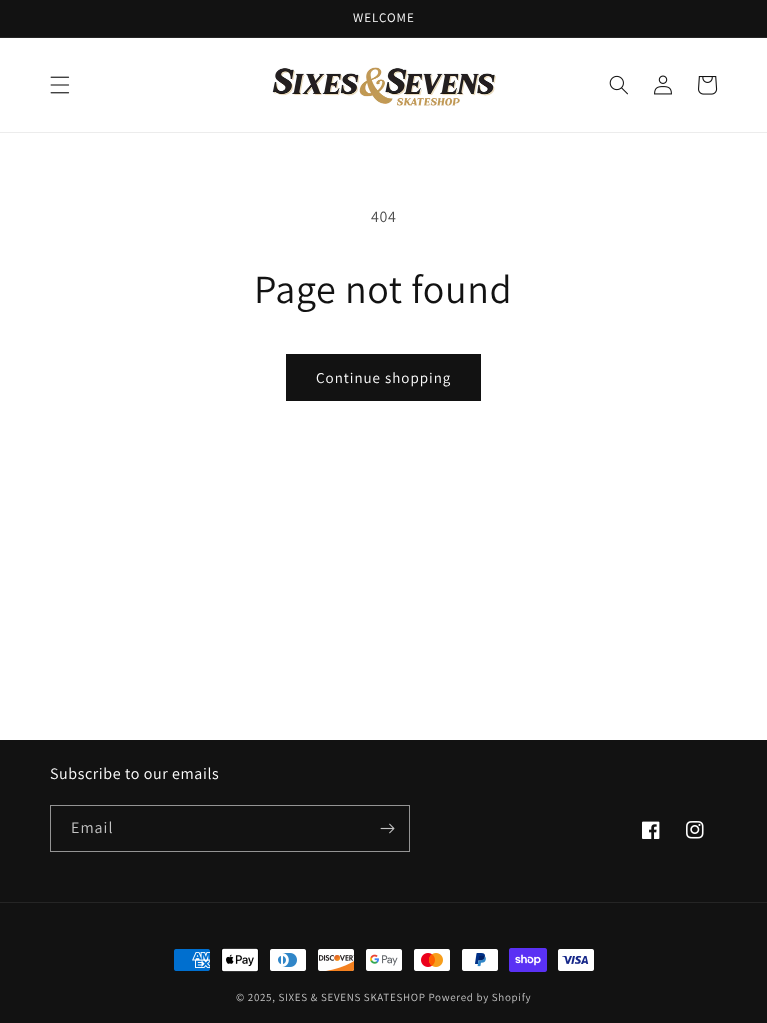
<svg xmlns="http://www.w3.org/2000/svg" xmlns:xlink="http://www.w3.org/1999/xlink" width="767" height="1023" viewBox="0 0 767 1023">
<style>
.cls-1{font:13px Assistant;letter-spacing:1px;fill:#ffffff}
.cls-2{font:16px Assistant;letter-spacing:0.6px;fill:#4d4d4d}
.cls-3{font:40px Assistant;letter-spacing:0.6px;fill:#121212}
.cls-4{font:15px Assistant;letter-spacing:1px;fill:#ffffff}
.cls-5{font:16px Assistant;letter-spacing:0.6px;fill:#ffffff}
.cls-6{font:16px Assistant;letter-spacing:1px;fill:#c4c4c4}
.cls-7{font:11px Assistant;letter-spacing:0.7px;fill:#c4c4c4}
</style>
<rect width="100%" height="100%" fill="#ffffff"/>
<rect fill="#121212" x="0" y="0" width="767" height="37"/>
<rect fill="#252525" x="0" y="37" width="767" height="1"/>
<rect fill="#ececec" x="0" y="132" width="767" height="1"/>
<image xlink:href="image0.png" x="50" y="76" width="20" height="18"/>
<image xlink:href="image1.png" x="272" y="67" width="224" height="39"/>
<image xlink:href="image2.png" x="609" y="75" width="19" height="20"/>
<image xlink:href="image3.png" x="654" y="75" width="18" height="20"/>
<image xlink:href="image4.png" x="698" y="76" width="20" height="19"/>
<rect fill="#121212" x="286" y="354" width="195" height="47"/>
<rect fill="#121212" x="0" y="740" width="767" height="283"/>
<rect fill="none" stroke="#949494" x="50.5" y="805.5" width="359" height="46"/>
<image xlink:href="image5.png" x="380" y="823" width="15" height="11"/>
<image xlink:href="image6.png" x="642" y="821" width="18" height="18"/>
<image xlink:href="image7.png" x="686" y="821" width="18" height="18"/>
<rect fill="#252525" x="0" y="902" width="767" height="1"/>
<image xlink:href="image8.png" x="174" y="949" width="36" height="22"/>
<image xlink:href="image9.png" x="221" y="948" width="38" height="24"/>
<image xlink:href="image10.png" x="270" y="949" width="36" height="22"/>
<image xlink:href="image11.png" x="318" y="949" width="36" height="22"/>
<image xlink:href="image12.png" x="366" y="949" width="36" height="22"/>
<image xlink:href="image13.png" x="414" y="949" width="36" height="22"/>
<image xlink:href="image14.png" x="462" y="949" width="36" height="22"/>
<image xlink:href="image15.png" x="509" y="948" width="38" height="24"/>
<image xlink:href="image16.png" x="558" y="949" width="36" height="22"/>
<text class="cls-1" x="353" y="22">WELCOME</text>
<text class="cls-2" x="371" y="222">404</text>
<text class="cls-3" x="254" y="303">Page not found</text>
<text class="cls-4" x="316" y="383">Continue shopping</text>
<text class="cls-5" x="50" y="779">Subscribe to our emails</text>
<text class="cls-6" x="71" y="833">Email</text>
<text class="cls-7" x="236" y="1001">© 2025, SIXES &amp; SEVENS SKATESHOP Powered by Shopify</text>
</svg>
